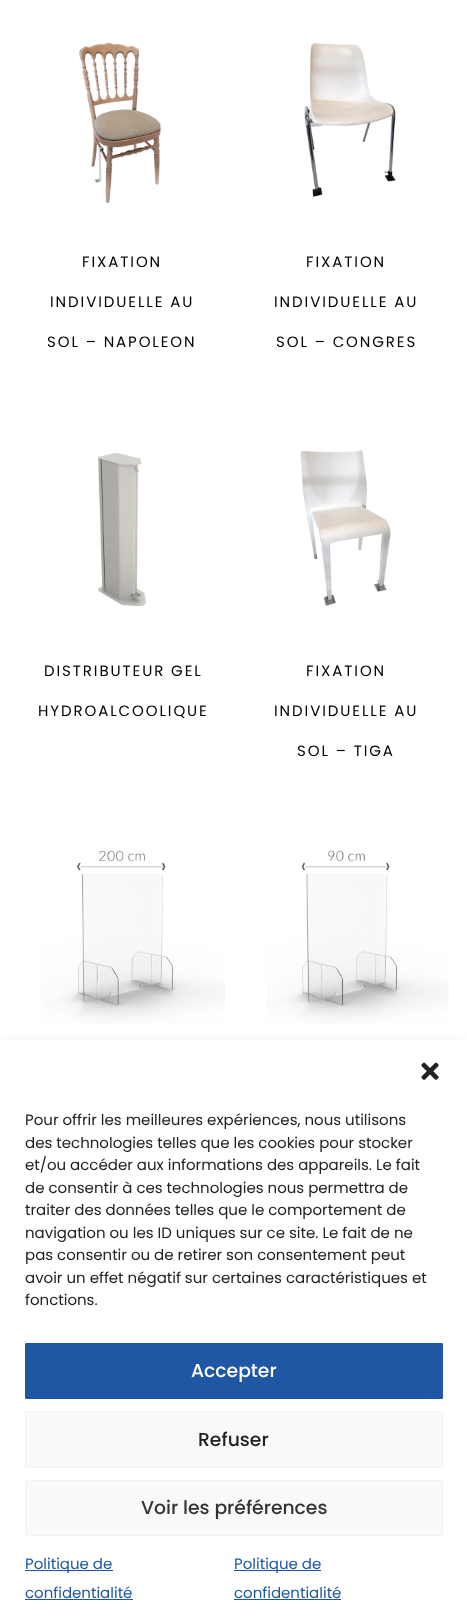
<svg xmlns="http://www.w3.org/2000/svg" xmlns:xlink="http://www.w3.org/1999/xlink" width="467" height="1624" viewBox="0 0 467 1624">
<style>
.cls-1{font:15px Poppins;letter-spacing:1.9px;fill:#000000}
.cls-2{font:15px Poppins;fill:#222222}
.cls-3{font:500 18.75px Poppins;fill:#ffffff}
.cls-4{font:500 18.75px Poppins;fill:#222222}
.cls-5{font:500 18.75px Poppins;fill:#333333}
.cls-6{font:15px Poppins;fill:#1f57a4}
</style>
<rect width="100%" height="100%" fill="#ffffff"/>
<image xlink:href="image0.png" x="67" y="42" width="94" height="162"/>
<image xlink:href="image1.png" x="304" y="42" width="92" height="155"/>
<image xlink:href="image2.png" x="98" y="453" width="49" height="154"/>
<image xlink:href="image3.png" x="300" y="450" width="91" height="156"/>
<image xlink:href="image4.png" x="41" y="850" width="184" height="174"/>
<image xlink:href="image5.png" x="266" y="850" width="183" height="174"/>
<rect fill="#000000" fill-opacity="0.19" filter="blur(12.5px)" x="0" y="1053" width="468" height="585" rx="1"/>
<rect fill="#ffffff" x="0" y="1040" width="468" height="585" rx="1"/>
<image xlink:href="image6.png" x="421" y="1062" width="18" height="18"/>
<rect fill="#1f57a4" stroke="#1f57a4" x="25.5" y="1343.5" width="417" height="55" rx="0.5"/>
<rect fill="#f9f9f9" stroke="#f2f2f2" x="25.5" y="1411.5" width="417" height="56" rx="0.5"/>
<rect fill="#f9f9f9" stroke="#f2f2f2" x="25.5" y="1480.5" width="417" height="55" rx="0.5"/>
<rect fill="#1f57a4" x="25" y="1570" width="88" height="1"/>
<rect fill="#1f57a4" x="25" y="1599" width="108" height="1"/>
<rect fill="#1f57a4" x="234" y="1570" width="87" height="1"/>
<rect fill="#1f57a4" x="234" y="1599" width="107" height="1"/>
<text class="cls-1" x="82" y="267">FIXATION</text>
<text class="cls-1" x="50" y="307">INDIVIDUELLE AU</text>
<text class="cls-1" x="47" y="347">SOL – NAPOLEON</text>
<text class="cls-1" x="306" y="267">FIXATION</text>
<text class="cls-1" x="274" y="307">INDIVIDUELLE AU</text>
<text class="cls-1" x="276" y="347">SOL – CONGRES</text>
<text class="cls-1" x="44" y="676">DISTRIBUTEUR GEL</text>
<text class="cls-1" x="38" y="716">HYDROALCOOLIQUE</text>
<text class="cls-1" x="306" y="676">FIXATION</text>
<text class="cls-1" x="274" y="716">INDIVIDUELLE AU</text>
<text class="cls-1" x="297" y="756">SOL – TIGA</text>
<text class="cls-2"><tspan x="25" y="1125">Pour offrir les meilleures expériences, nous utilisons</tspan><tspan x="25" y="1148">des technologies telles que les cookies pour stocker</tspan><tspan x="25" y="1170">et/ou accéder aux informations des appareils. Le fait</tspan><tspan x="25" y="1193">de consentir à ces technologies nous permettra de</tspan><tspan x="25" y="1215">traiter des données telles que le comportement de</tspan><tspan x="25" y="1238">navigation ou les ID uniques sur ce site. Le fait de ne</tspan><tspan x="25" y="1260">pas consentir ou de retirer son consentement peut</tspan><tspan x="25" y="1283">avoir un effet négatif sur certaines caractéristiques et</tspan><tspan x="25" y="1305">fonctions.</tspan></text>
<text class="cls-3" x="191" y="1377">Accepter</text>
<text class="cls-4" x="198" y="1446">Refuser</text>
<text class="cls-5" x="141" y="1514">Voir les préférences</text>
<text class="cls-6"><tspan x="25" y="1569">Politique de</tspan><tspan x="25" y="1598">confidentialité</tspan></text>
<text class="cls-6"><tspan x="234" y="1569">Politique de</tspan><tspan x="234" y="1598">confidentialité</tspan></text>
</svg>
